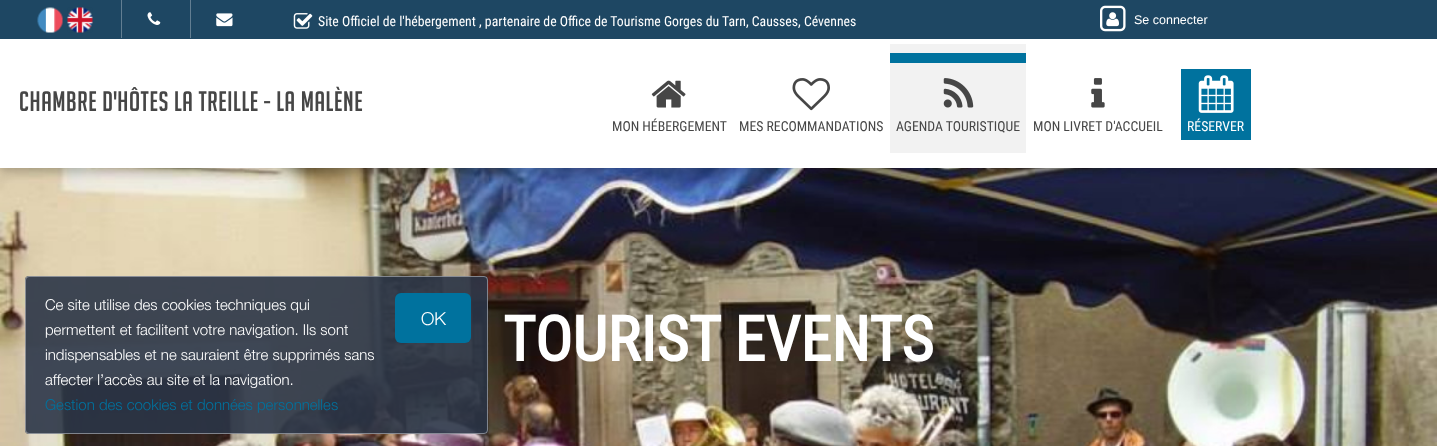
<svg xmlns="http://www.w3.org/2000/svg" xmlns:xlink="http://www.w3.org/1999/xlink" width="1437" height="446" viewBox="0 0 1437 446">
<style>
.cls-1{font:13.75px Roboto Condensed;fill:#ffffff}
.cls-2{font:12.5px Liberation Sans;fill:#ffffff}
.cls-3{font:27.5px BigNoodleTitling;letter-spacing:0.6px;fill:#464646}
.cls-4{font:13.75px Roboto Condensed;fill:#464646}
.cls-5{font:300 15px Helvetica Neue;fill:#ffffff}
.cls-6{font:300 18px Helvetica Neue;fill:#ffffff}
.cls-7{font:300 15px Helvetica Neue;fill:#00729e}
.cls-8{font:bold 62.5px Roboto Condensed;fill:#ffffff}
</style>
<rect width="100%" height="100%" fill="#ffffff"/>
<image xlink:href="image12.png" x="0" y="168" width="1437" height="278"/>
<rect fill="#000000" fill-opacity="0.2" filter="blur(5px)" x="0" y="5" width="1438" height="168"/>
<rect fill="#ffffff" x="0" y="39" width="1437" height="129"/>
<rect fill="#1e4763" x="0" y="0" width="1437" height="39"/>
<image xlink:href="image0.png" x="37" y="7" width="26" height="26"/>
<image xlink:href="image1.png" x="67" y="7" width="26" height="26"/>
<rect fill="#627e92" x="121" y="0" width="1" height="38"/>
<image xlink:href="image2.png" x="147" y="12" width="14" height="13"/>
<rect fill="#627e92" x="190" y="0" width="1" height="38"/>
<image xlink:href="image3.png" x="216" y="13" width="17" height="14"/>
<image xlink:href="image4.png" x="293" y="13" width="20" height="16"/>
<image xlink:href="image5.png" x="1100" y="5" width="26" height="27"/>
<image xlink:href="image6.png" x="1106" y="12" width="13" height="15"/>
<image xlink:href="image7.png" x="651" y="80" width="35" height="28"/>
<image xlink:href="image8.png" x="792" y="78" width="38" height="33"/>
<rect fill="#f2f2f2" x="890" y="44" width="136" height="109"/>
<rect fill="#00729e" x="890" y="53" width="136" height="10"/>
<image xlink:href="image9.png" x="943" y="78" width="31" height="30"/>
<image xlink:href="image10.png" x="1091" y="78" width="14" height="30"/>
<rect fill="#00729e" x="1181" y="69" width="70" height="71"/>
<image xlink:href="image11.png" x="1198" y="75" width="36" height="38"/>
<rect fill="#2b3547" fill-opacity="0.9" x="25" y="276" width="463" height="158" rx="4"/>
<rect fill="none" stroke="#ffffff" stroke-opacity="0.4" x="25.5" y="276.5" width="462" height="157" rx="3.5"/>
<rect fill="#00729e" x="395" y="293" width="76" height="50" rx="6"/>
<text class="cls-1" x="318" y="26">Site Officiel de l'hébergement , partenaire de Office de Tourisme Gorges du Tarn, Causses, Cévennes</text>
<text class="cls-2" x="1134" y="24">Se connecter</text>
<text class="cls-3" x="19" y="111">CHAMBRE D'HÔTES LA TREILLE - LA MALÈNE</text>
<text class="cls-4" x="612" y="131">MON HÉBERGEMENT</text>
<text class="cls-4" x="739" y="131">MES RECOMMANDATIONS</text>
<text class="cls-4" x="896" y="131">AGENDA TOURISTIQUE</text>
<text class="cls-4" x="1033" y="131">MON LIVRET D'ACCUEIL</text>
<text class="cls-1" x="1187" y="131">RÉSERVER</text>
<text class="cls-5" x="45" y="310">Ce site utilise des cookies techniques qui</text>
<text class="cls-6" x="421" y="325">OK</text>
<text class="cls-5"><tspan x="45" y="335">permettent et facilitent votre navigation. Ils sont</tspan><tspan x="45" y="360">indispensables et ne sauraient être supprimés sans</tspan><tspan x="45" y="385">affecter l’accès au site et la navigation.</tspan></text>
<text class="cls-7" x="45" y="410">Gestion des cookies et données personnelles</text>
<text class="cls-8" x="503" y="361">TOURIST EVENTS</text>
</svg>
